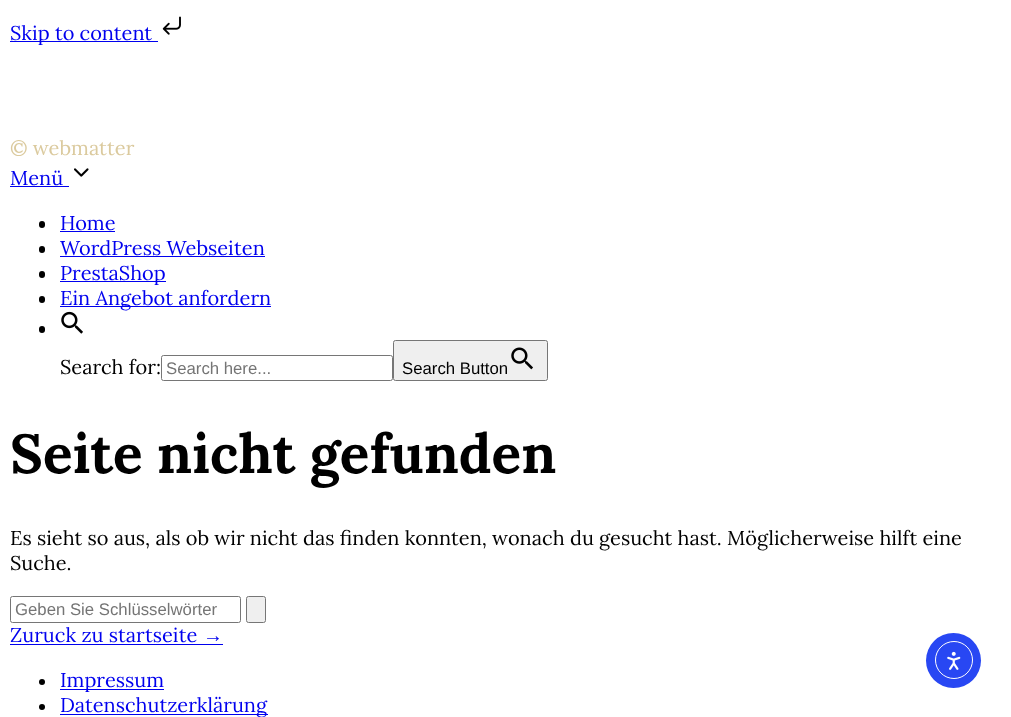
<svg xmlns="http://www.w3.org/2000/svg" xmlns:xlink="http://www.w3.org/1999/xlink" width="1011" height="717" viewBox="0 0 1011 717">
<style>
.cls-1{font:20px Lora;fill:#0000ee}
.cls-2{font:20px Lora;fill:#dbca9e}
.cls-3{font:20px Lora;fill:#000000}
.cls-4{font:16.75px Liberation Sans;fill:#757575}
.cls-5{font:16.75px Liberation Sans;fill:#000000}
.cls-6{font:bold 55px Lora;fill:#000000}
.cls-7{font:20px Liberation Serif;fill:#0000ee}
</style>
<rect width="100%" height="100%" fill="#ffffff"/>
<rect fill="#0000ee" x="10" y="41" width="148" height="1"/>
<image xlink:href="image0.png" x="162" y="16" width="19" height="19"/>
<rect fill="#0000ee" x="10" y="186" width="59" height="1"/>
<image xlink:href="image1.png" x="74" y="168" width="15" height="9"/>
<rect fill="#000000" x="39" y="221" width="6" height="7" rx="3"/>
<rect fill="#0000ee" x="60" y="231" width="55" height="1"/>
<rect fill="#000000" x="39" y="246" width="6" height="7" rx="3"/>
<rect fill="#0000ee" x="60" y="256" width="205" height="1"/>
<rect fill="#000000" x="39" y="271" width="6" height="7" rx="3"/>
<rect fill="#0000ee" x="60" y="281" width="106" height="1"/>
<rect fill="#000000" x="39" y="296" width="6" height="7" rx="3"/>
<rect fill="#0000ee" x="60" y="306" width="211" height="1"/>
<rect fill="#000000" x="39" y="326" width="6" height="7" rx="3"/>
<image xlink:href="image2.png" x="61" y="311" width="22" height="23"/>
<rect fill="none" stroke="#767676" x="161.5" y="355.5" width="231" height="25" rx="2"/>
<rect fill="#efefef" stroke="#767676" x="393.5" y="340.5" width="154" height="40" rx="2"/>
<image xlink:href="image3.png" x="511" y="347" width="22" height="23"/>
<rect fill="none" stroke="#767676" x="10.5" y="596.5" width="230" height="26" rx="2"/>
<rect fill="#efefef" stroke="#767676" x="246.5" y="596.5" width="19" height="26" rx="2"/>
<rect fill="#0000ee" x="10" y="644" width="213" height="1"/>
<circle fill="#000000" cx="42" cy="682" r="3"/>
<rect fill="#0000ee" x="60" y="689" width="104" height="1"/>
<circle fill="#000000" cx="42" cy="707" r="3"/>
<rect fill="#0000ee" x="60" y="714" width="208" height="1"/>
<circle fill="#2847f3" cx="953.5" cy="660.5" r="27.5"/>
<circle fill="none" stroke="#ffffff" cx="954" cy="660" r="18.5"/>
<image xlink:href="image4.png" x="947" y="651" width="14" height="19"/>
<text class="cls-1" x="10" y="40">Skip to content</text>
<text class="cls-2" x="10" y="155">© webmatter</text>
<text class="cls-1" x="10" y="185">Menü</text>
<text class="cls-1"><tspan x="60" y="230">Home</tspan><tspan x="60" y="255">WordPress Webseiten</tspan><tspan x="60" y="280">PrestaShop</tspan><tspan x="60" y="305">Ein Angebot anfordern</tspan></text>
<text class="cls-3" x="60" y="374">Search for:</text>
<text class="cls-4" x="166" y="374">Search here...</text>
<text class="cls-5" x="402" y="374">Search Button</text>
<text class="cls-6" x="10" y="473">Seite nicht gefunden</text>
<text class="cls-3"><tspan x="10" y="545">Es sieht so aus, als ob wir nicht das finden konnten, wonach du gesucht hast. Möglicherweise hilft eine</tspan><tspan x="10" y="570">Suche.</tspan></text>
<text class="cls-4" x="15" y="615">Geben Sie Schlüsselwörter</text>
<text class="cls-1" x="10" y="642">Zuruck zu startseite</text>
<text class="cls-7" x="203" y="642">→</text>
<text class="cls-1"><tspan x="60" y="687">Impressum</tspan><tspan x="60" y="712">Datenschutzerklärung</tspan></text>
</svg>
